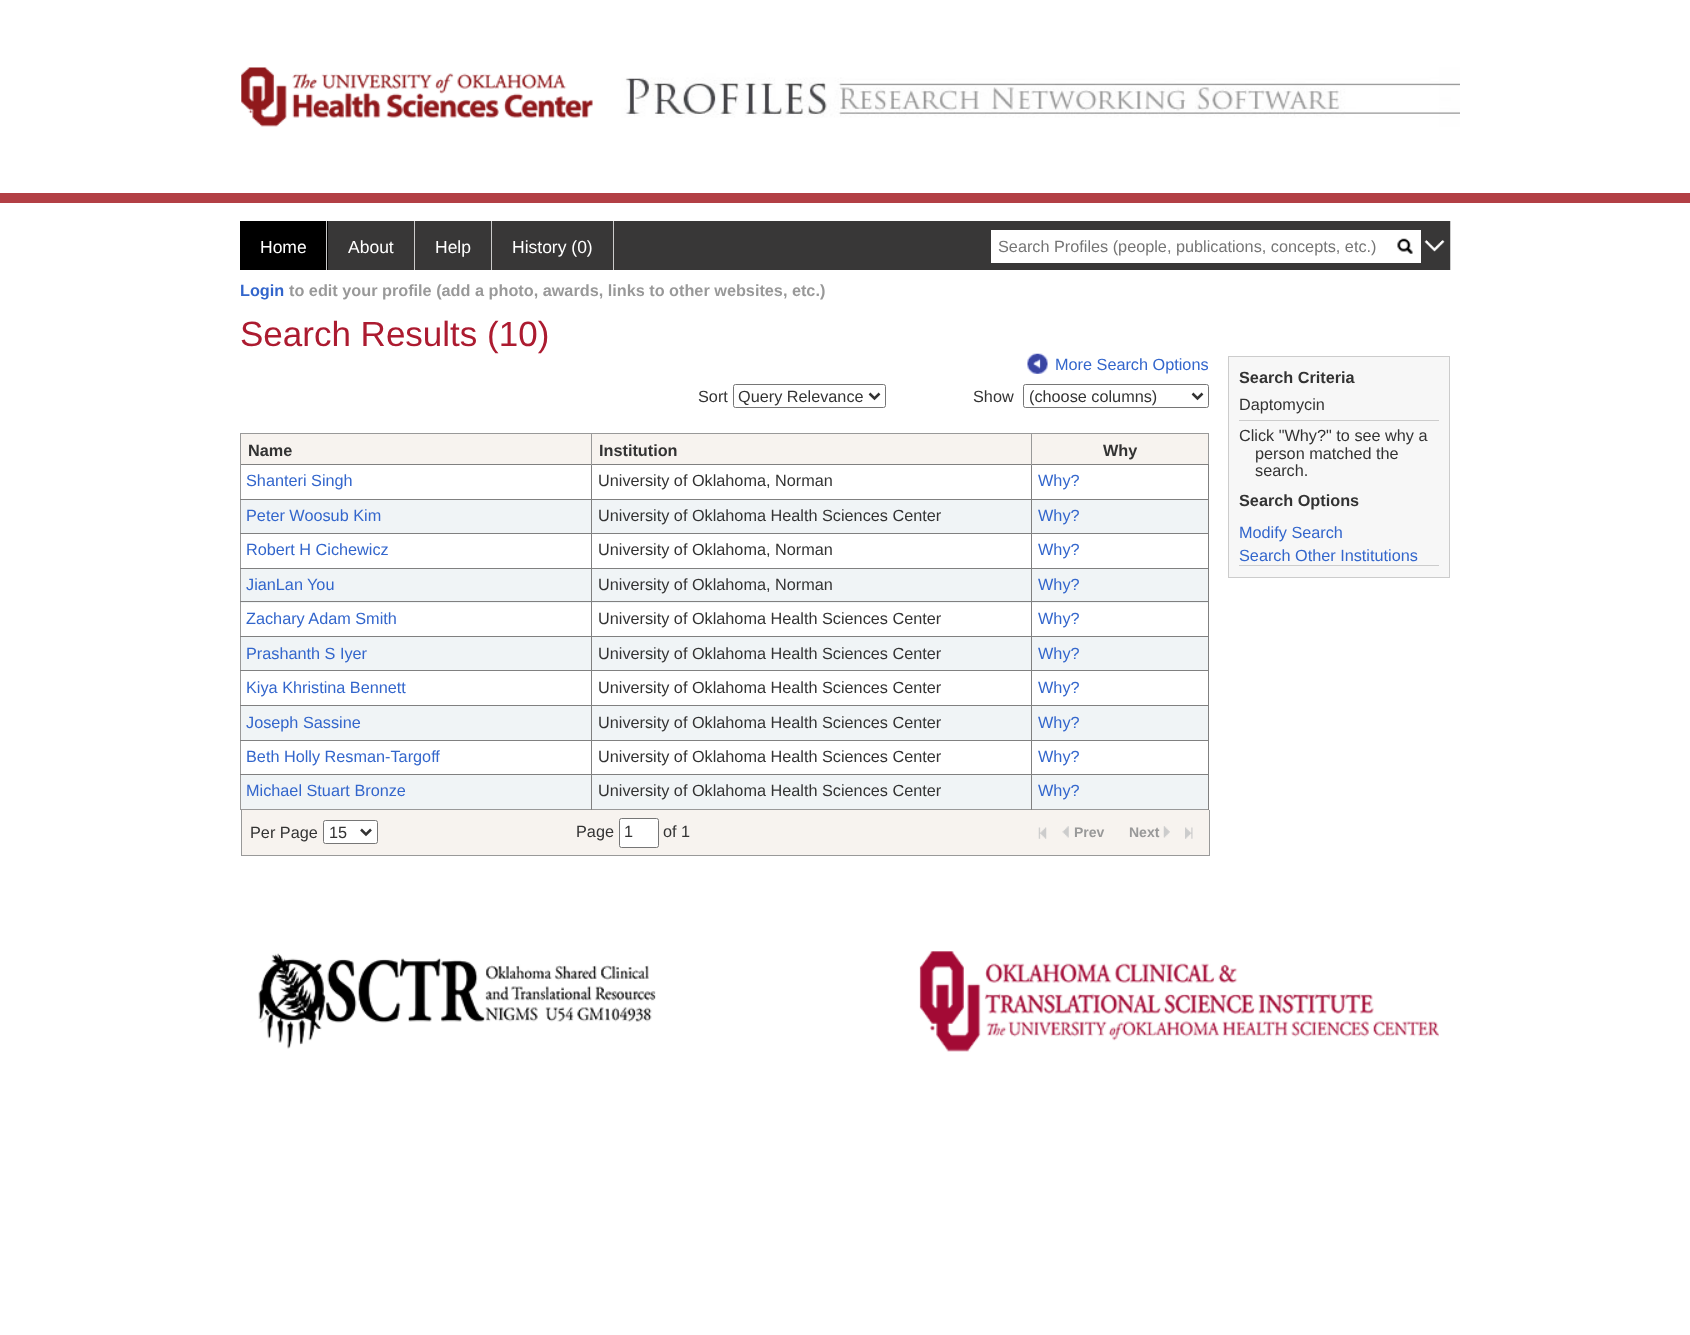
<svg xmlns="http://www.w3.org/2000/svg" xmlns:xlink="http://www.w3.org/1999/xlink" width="1690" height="1335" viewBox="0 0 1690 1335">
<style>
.cls-1{font:17.5px Liberation Sans;fill:#ffffff}
.cls-2{font:16.25px Liberation Sans;fill:#757575}
.cls-3{font:bold 16.25px Liberation Sans;fill:#3366cc}
.cls-4{font:bold 16.25px Liberation Sans;fill:#999999}
.cls-5{font:35px Liberation Sans;fill:#ac1b30}
.cls-6{font:16.25px Liberation Sans;fill:#3366cc}
.cls-7{font:16.25px Liberation Sans;fill:#333333}
.cls-8{font:bold 16.25px Liberation Sans;fill:#333333}
.cls-9{font:bold 14px Liberation Sans;fill:#999999}
</style>
<rect width="100%" height="100%" fill="#ffffff"/>
<rect fill="#b23f45" x="0" y="193" width="1690" height="10"/>
<image xlink:href="image0.png" x="241" y="67" width="1219" height="60"/>
<rect fill="#383737" x="328" y="221" width="1122" height="49"/>
<rect fill="#000000" x="240" y="221" width="88" height="49"/>
<rect fill="#cccccc" x="326" y="221" width="1" height="49"/>
<rect fill="#cccccc" x="414" y="221" width="1" height="49"/>
<rect fill="#cccccc" x="491" y="221" width="1" height="49"/>
<rect fill="#cccccc" x="613" y="221" width="1" height="49"/>
<rect fill="#ffffff" x="991" y="230" width="430" height="33"/>
<image xlink:href="image1.png" x="1397" y="238" width="16" height="16"/>
<rect fill="#cccccc" x="1450" y="221" width="1" height="49"/>
<image xlink:href="image2.png" x="1424" y="240" width="21" height="12"/>
<image xlink:href="image3.png" x="1027" y="353" width="21" height="21"/>
<rect fill="none" stroke="#767676" x="733.5" y="384.5" width="152" height="23" rx="2"/>
<path fill="none" stroke="#333333" stroke-width="2.5" d="M869.5 393.5L874.5 398.5L879.5 393.5"/>
<rect fill="none" stroke="#767676" x="1023.5" y="384.5" width="185" height="23" rx="2"/>
<path fill="none" stroke="#333333" stroke-width="2.5" d="M1192.5 393.5L1197.5 398.5L1202.5 393.5"/>
<rect fill="#999999" x="240" y="433" width="969" height="1"/>
<rect fill="#999999" x="1208" y="433" width="1" height="31"/>
<rect fill="#999999" x="240" y="809" width="969" height="1"/>
<rect fill="#999999" x="240" y="465" width="1" height="345"/>
<rect fill="#f7f3ef" x="241" y="434" width="967" height="30"/>
<rect fill="#808080" x="240" y="464" width="969" height="1"/>
<rect fill="#999999" x="240" y="433" width="1" height="32"/>
<rect fill="#f0f4f6" x="241" y="500" width="967" height="33"/>
<rect fill="#808080" x="240" y="499" width="969" height="1"/>
<rect fill="#808080" x="240" y="533" width="969" height="1"/>
<rect fill="#f0f4f6" x="241" y="569" width="967" height="34"/>
<rect fill="#808080" x="240" y="568" width="969" height="1"/>
<rect fill="#808080" x="240" y="601" width="969" height="1"/>
<rect fill="#f0f4f6" x="241" y="637" width="967" height="33"/>
<rect fill="#808080" x="240" y="636" width="969" height="1"/>
<rect fill="#808080" x="240" y="670" width="969" height="1"/>
<rect fill="#f0f4f6" x="241" y="706" width="967" height="34"/>
<rect fill="#808080" x="240" y="705" width="969" height="1"/>
<rect fill="#808080" x="240" y="740" width="969" height="1"/>
<rect fill="#f0f4f6" x="241" y="775" width="967" height="34"/>
<rect fill="#808080" x="240" y="774" width="969" height="1"/>
<rect fill="#808080" x="591" y="774" width="1" height="36"/>
<rect fill="#808080" x="591" y="740" width="1" height="35"/>
<rect fill="#808080" x="591" y="705" width="1" height="36"/>
<rect fill="#808080" x="591" y="670" width="1" height="36"/>
<rect fill="#808080" x="591" y="636" width="1" height="35"/>
<rect fill="#808080" x="591" y="601" width="1" height="37"/>
<rect fill="#808080" x="591" y="568" width="1" height="35"/>
<rect fill="#808080" x="591" y="533" width="1" height="36"/>
<rect fill="#808080" x="591" y="499" width="1" height="35"/>
<rect fill="#808080" x="591" y="464" width="1" height="36"/>
<rect fill="#999999" x="591" y="433" width="1" height="32"/>
<rect fill="#808080" x="1031" y="774" width="1" height="36"/>
<rect fill="#808080" x="1031" y="740" width="1" height="35"/>
<rect fill="#808080" x="1031" y="705" width="1" height="36"/>
<rect fill="#808080" x="1031" y="670" width="1" height="36"/>
<rect fill="#808080" x="1031" y="636" width="1" height="35"/>
<rect fill="#808080" x="1031" y="601" width="1" height="37"/>
<rect fill="#808080" x="1031" y="568" width="1" height="35"/>
<rect fill="#808080" x="1031" y="533" width="1" height="36"/>
<rect fill="#808080" x="1031" y="499" width="1" height="35"/>
<rect fill="#808080" x="1031" y="464" width="1" height="36"/>
<rect fill="#999999" x="1031" y="433" width="1" height="32"/>
<rect fill="#808080" x="1208" y="774" width="1" height="36"/>
<rect fill="#808080" x="1208" y="740" width="1" height="35"/>
<rect fill="#808080" x="1208" y="705" width="1" height="36"/>
<rect fill="#808080" x="1208" y="670" width="1" height="36"/>
<rect fill="#808080" x="1208" y="636" width="1" height="35"/>
<rect fill="#808080" x="1208" y="601" width="1" height="37"/>
<rect fill="#808080" x="1208" y="568" width="1" height="35"/>
<rect fill="#808080" x="1208" y="533" width="1" height="36"/>
<rect fill="#808080" x="1208" y="499" width="1" height="35"/>
<rect fill="#808080" x="1208" y="464" width="1" height="36"/>
<rect fill="#f7f3ef" x="242" y="810" width="967" height="45"/>
<rect fill="#999999" x="1209" y="810" width="1" height="46"/>
<rect fill="#999999" x="241" y="855" width="969" height="1"/>
<rect fill="#999999" x="241" y="810" width="1" height="46"/>
<rect fill="#ffffff" stroke="#767676" x="323.5" y="820.5" width="54" height="23" rx="2"/>
<path fill="none" stroke="#333333" stroke-width="2.5" d="M361 829.5L366 834.5L371 829.5"/>
<rect fill="#ffffff" stroke="#767676" x="619.5" y="818.5" width="39" height="29" rx="2"/>
<image xlink:href="image4.png" x="1038" y="827" width="9" height="12"/>
<image xlink:href="image5.png" x="1062" y="826" width="7" height="12"/>
<image xlink:href="image6.png" x="1163" y="826" width="7" height="12"/>
<image xlink:href="image7.png" x="1185" y="827" width="8" height="12"/>
<rect fill="#f7f7f7" stroke="#cccccc" x="1228.5" y="356.5" width="221" height="221"/>
<rect fill="#cccccc" x="1239" y="420" width="200" height="1"/>
<rect fill="#cccccc" x="1239" y="565" width="200" height="1"/>
<image xlink:href="image8.png" x="258" y="951" width="1181" height="101"/>
<text class="cls-1" x="260" y="253">Home</text>
<text class="cls-1" x="348" y="253">About</text>
<text class="cls-1" x="435" y="253">Help</text>
<text class="cls-1" x="512" y="253">History (0)</text>
<text class="cls-2" x="998" y="252">Search Profiles (people, publications, concepts, etc.)</text>
<text class="cls-3" x="240" y="296">Login</text>
<text class="cls-4" x="289" y="296">to edit your profile (add a photo, awards, links to other websites, etc.)</text>
<text class="cls-5" x="240" y="346">Search Results (10)</text>
<text class="cls-6" x="1055" y="370">More Search Options</text>
<text class="cls-7" x="698" y="402">Sort</text>
<text class="cls-7" x="738" y="402">Query Relevance</text>
<text class="cls-7" x="973" y="402">Show</text>
<text class="cls-7" x="1029" y="402">(choose columns)</text>
<text class="cls-8" x="248" y="456">Name</text>
<text class="cls-8" x="599" y="456">Institution</text>
<text class="cls-8" x="1103" y="456">Why</text>
<text class="cls-6" x="246" y="486">Shanteri Singh</text>
<text class="cls-7" x="598" y="486">University of Oklahoma, Norman</text>
<text class="cls-6" x="1038" y="486">Why?</text>
<text class="cls-6" x="246" y="521">Peter Woosub Kim</text>
<text class="cls-7" x="598" y="521">University of Oklahoma Health Sciences Center</text>
<text class="cls-6" x="1038" y="521">Why?</text>
<text class="cls-6" x="246" y="555">Robert H Cichewicz</text>
<text class="cls-7" x="598" y="555">University of Oklahoma, Norman</text>
<text class="cls-6" x="1038" y="555">Why?</text>
<text class="cls-6" x="246" y="590">JianLan</text>
<text class="cls-6" x="307" y="590">You</text>
<text class="cls-7" x="598" y="590">University of Oklahoma, Norman</text>
<text class="cls-6" x="1038" y="590">Why?</text>
<text class="cls-6" x="246" y="624">Zachary Adam Smith</text>
<text class="cls-7" x="598" y="624">University of Oklahoma Health Sciences Center</text>
<text class="cls-6" x="1038" y="624">Why?</text>
<text class="cls-6" x="246" y="659">Prashanth S Iyer</text>
<text class="cls-7" x="598" y="659">University of Oklahoma Health Sciences Center</text>
<text class="cls-6" x="1038" y="659">Why?</text>
<text class="cls-6" x="246" y="693">Kiya Khristina Bennett</text>
<text class="cls-7" x="598" y="693">University of Oklahoma Health Sciences Center</text>
<text class="cls-6" x="1038" y="693">Why?</text>
<text class="cls-6" x="246" y="728">Joseph Sassine</text>
<text class="cls-7" x="598" y="728">University of Oklahoma Health Sciences Center</text>
<text class="cls-6" x="1038" y="728">Why?</text>
<text class="cls-6" x="246" y="762">Beth Holly Resman-Targoff</text>
<text class="cls-7" x="598" y="762">University of Oklahoma Health Sciences Center</text>
<text class="cls-6" x="1038" y="762">Why?</text>
<text class="cls-6" x="246" y="796">Michael Stuart Bronze</text>
<text class="cls-7" x="598" y="796">University of Oklahoma Health Sciences Center</text>
<text class="cls-6" x="1038" y="796">Why?</text>
<text class="cls-7" x="250" y="838">Per Page</text>
<text class="cls-7" x="329" y="838">15</text>
<text class="cls-7" x="576" y="837">Page</text>
<text class="cls-7" x="624" y="837">1</text>
<text class="cls-7" x="663" y="837">of 1</text>
<text class="cls-9" x="1074" y="837">Prev</text>
<text class="cls-9" x="1129" y="837">Next</text>
<text class="cls-8" x="1239" y="383">Search Criteria</text>
<text class="cls-7"><tspan x="1239" y="410">Daptomycin</tspan><tspan x="1239" y="441">Click "Why?" to see why a</tspan></text>
<text class="cls-7"><tspan x="1255" y="459">person matched the</tspan><tspan x="1255" y="476">search.</tspan></text>
<text class="cls-8" x="1239" y="506">Search Options</text>
<text class="cls-6"><tspan x="1239" y="538">Modify Search</tspan><tspan x="1239" y="561">Search Other Institutions</tspan></text>
</svg>
